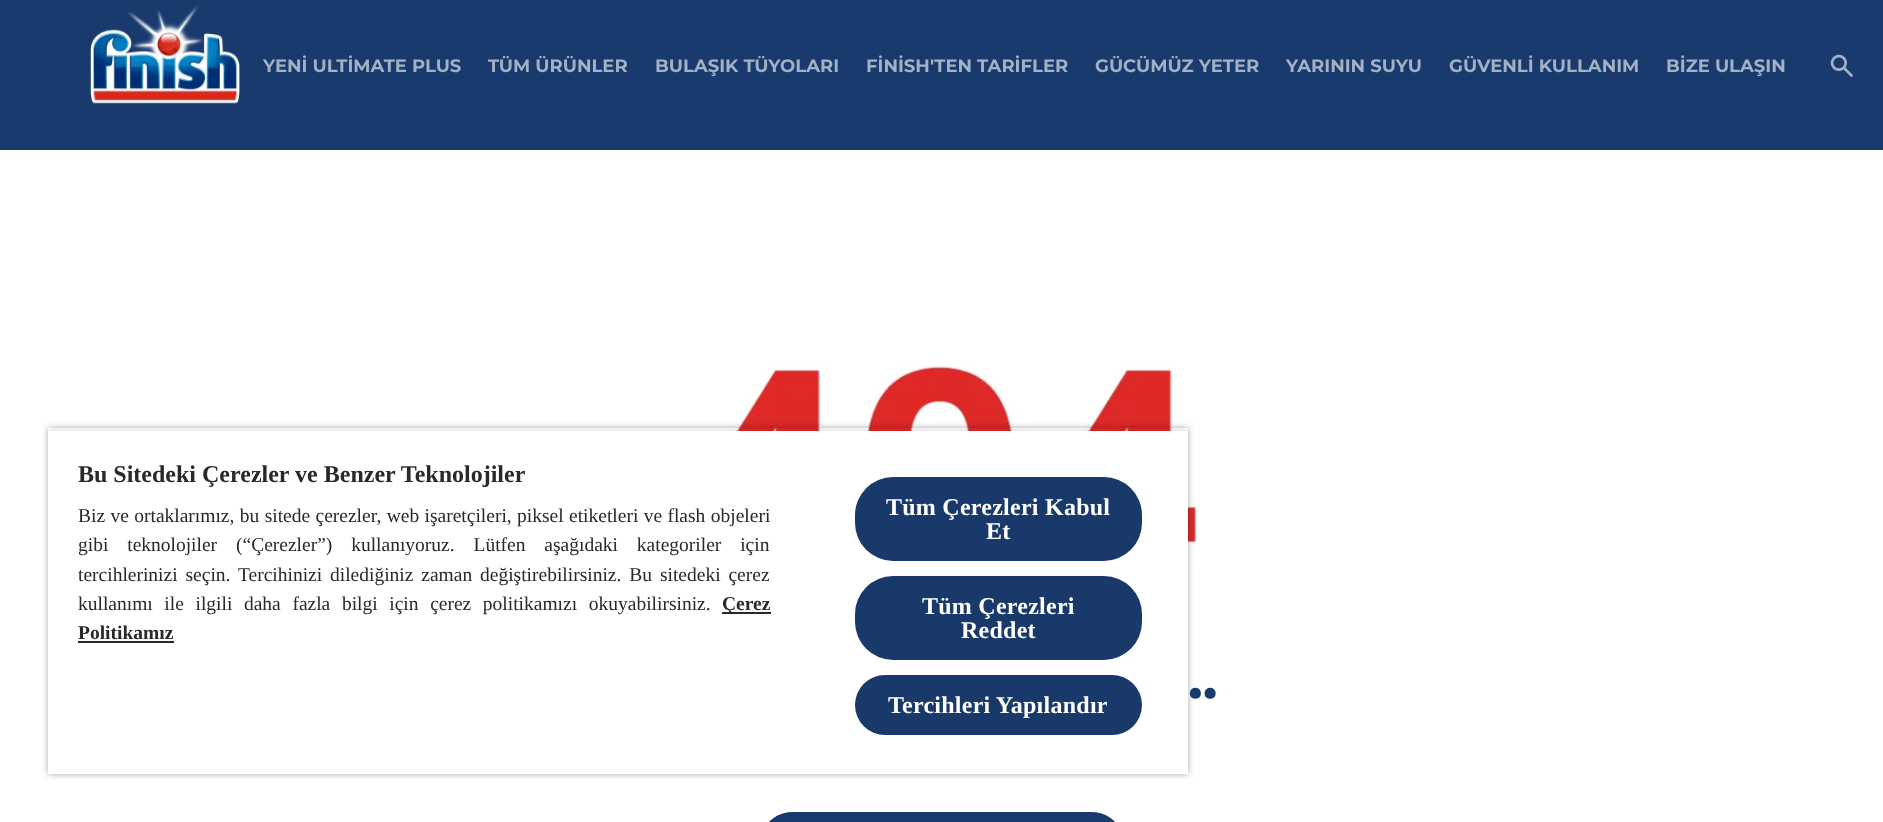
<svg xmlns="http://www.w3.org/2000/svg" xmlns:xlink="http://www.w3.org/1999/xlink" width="1883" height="822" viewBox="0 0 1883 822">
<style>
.cls-1{font:bold 18px Montserrat;fill:#a3b1c5}
.cls-2{font:bold 60px Ubuntu;fill:#183a6c}
.cls-3{font:bold 24px Liberation Serif;fill:#292929}
.cls-4{font:19.5px Liberation Serif;fill:#292929}
.cls-5{font:bold 19.5px Liberation Serif;fill:#292929}
.cls-6{font:bold 24px Liberation Serif;letter-spacing:0.25px;fill:#ffffff}
</style>
<defs>
<clipPath id="clip1"><path d="M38 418H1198V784H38ZM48 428H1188V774H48Z" clip-rule="evenodd"/></clipPath>
<clipPath id="clip2"><rect x="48" y="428" width="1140" height="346"/></clipPath>
</defs>
<rect width="100%" height="100%" fill="#ffffff"/>
<rect fill="#183a6c" x="0" y="0" width="1883" height="150"/>
<image xlink:href="image0.png" x="90" y="3" width="150" height="101"/>
<image xlink:href="image1.png" x="1830" y="54" width="24" height="24"/>
<image xlink:href="image2.png" x="682" y="366" width="516" height="232"/>
<rect fill="#183a6c" stroke="#183a6c" stroke-width="2" x="766" y="813" width="352" height="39" rx="27.5"/>
<g clip-path="url(#clip1)">
<rect fill="#000000" fill-opacity="0.35" filter="blur(3px)" x="48" y="428" width="1140" height="346"/>
</g>
<g clip-path="url(#clip2)">
<rect fill="#000000" fill-opacity="0.2" filter="blur(3px)" x="48" y="431" width="1140" height="343"/>
</g>
<rect fill="#ffffff" x="48" y="431" width="1140" height="343"/>
<rect fill="#292929" x="722" y="612" width="49" height="2"/>
<rect fill="#292929" x="78" y="641" width="96" height="2"/>
<rect fill="#19396b" x="855" y="477" width="287" height="84" rx="38"/>
<rect fill="#19396b" x="855" y="576" width="287" height="84" rx="38"/>
<rect fill="#19396b" x="855" y="675" width="287" height="60" rx="30"/>
<text class="cls-1" x="263" y="72">YENİ ULTİMATE PLUS</text>
<text class="cls-1" x="488" y="72">TÜM ÜRÜNLER</text>
<text class="cls-1" x="655" y="72">BULAŞIK TÜYOLARI</text>
<text class="cls-1" x="866" y="72">FİNİSH'TEN TARİFLER</text>
<text class="cls-1" x="1095" y="72">GÜCÜMÜZ YETER</text>
<text class="cls-1" x="1286" y="72">YARININ SUYU</text>
<text class="cls-1" x="1449" y="72">GÜVENLİ KULLANIM</text>
<text class="cls-1" x="1666" y="72">BİZE ULAŞIN</text>
<text class="cls-2" x="1188" y="698">..</text>
<text class="cls-3" x="78" y="482">Bu Sitedeki Çerezler ve Benzer Teknolojiler</text>
<text class="cls-4"><tspan x="78" y="522" word-spacing="0.5">Biz ve ortaklarımız, bu sitede çerezler, web işaretçileri, piksel etiketleri ve flash objeleri</tspan><tspan x="78" y="551" word-spacing="14">gibi teknolojiler (“Çerezler”) kullanıyoruz. Lütfen aşağıdaki kategoriler için</tspan><tspan x="78" y="581" word-spacing="3">tercihlerinizi seçin. Tercihinizi dilediğiniz zaman değiştirebilirsiniz. Bu sitedeki çerez</tspan><tspan x="78" y="610" word-spacing="6.75">kullanımı ile ilgili daha fazla bilgi için çerez politikamızı okuyabilirsiniz.</tspan></text>
<text class="cls-5" x="722" y="610">Çerez</text>
<text class="cls-5" x="78" y="639">Politikamız</text>
<text class="cls-6" x="886" y="515">Tüm Çerezleri Kabul</text>
<text class="cls-6" x="986" y="539">Et</text>
<text class="cls-6" x="922" y="614">Tüm Çerezleri</text>
<text class="cls-6" x="961" y="638">Reddet</text>
<text class="cls-6" x="888" y="713">Tercihleri Yapılandır</text>
</svg>
